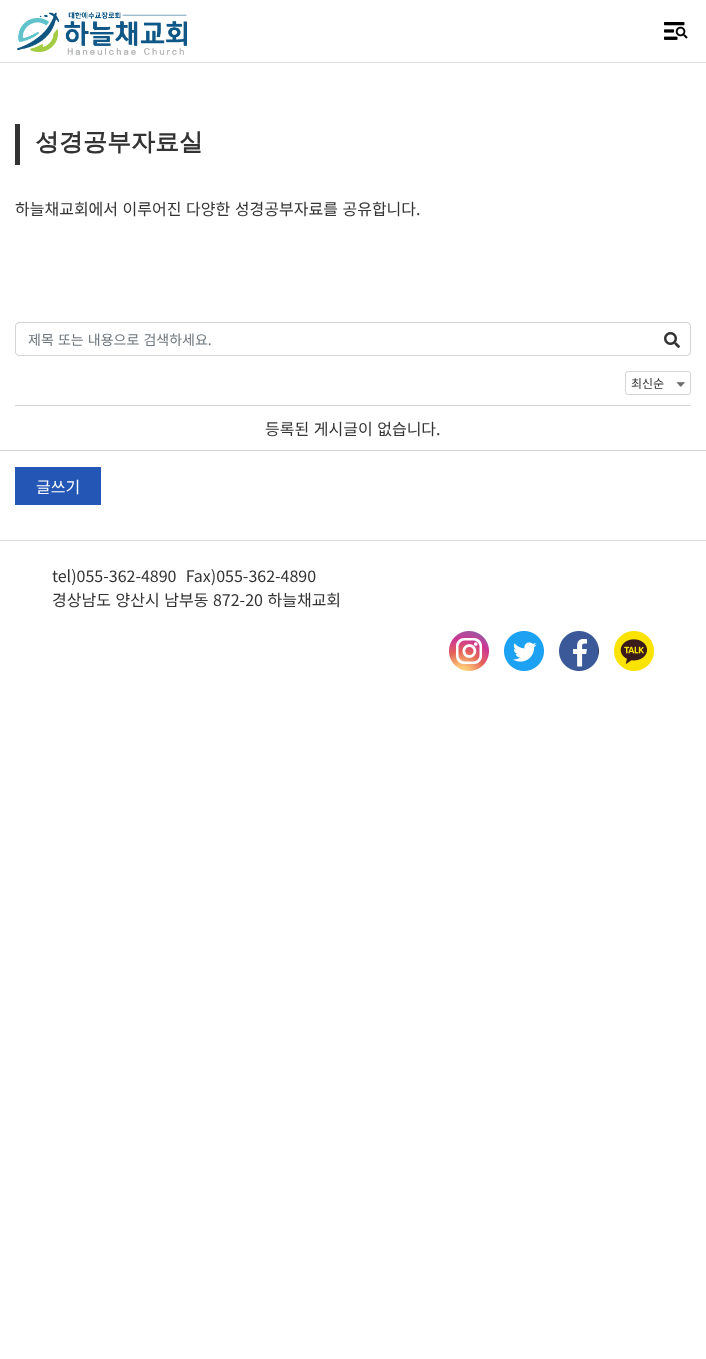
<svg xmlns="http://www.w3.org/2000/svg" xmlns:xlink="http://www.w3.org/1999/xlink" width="706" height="1359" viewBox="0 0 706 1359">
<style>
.cls-1{font:bold 24px WenQuanYi Zen Hei;fill:#333333}
.cls-2{font:16px Noto Sans KR;fill:#333333}
.cls-3{font:14px Noto Sans KR;fill:#6c757d}
.cls-4{font:12px Noto Sans KR;fill:#333333}
.cls-5{font:16px Noto Sans KR;fill:#ffffff}
</style>
<rect width="100%" height="100%" fill="#ffffff"/>
<rect fill="#dddddd" x="0" y="62" width="706" height="1"/>
<image xlink:href="image0.png" x="17" y="12" width="170" height="43"/>
<image xlink:href="image1.png" x="664" y="22" width="24" height="18"/>
<rect fill="#333333" x="15" y="124" width="5" height="41"/>
<path fill="#d5d5d5" fill-rule="evenodd" d="M19 322H654V356H19C17 356 15 354 15 352V326C15 324 17 322 19 322ZM19 323H654V355H18L16 353V325L17 324Z"/>
<path fill="#d5d5d5" fill-rule="evenodd" d="M654 322H687C689 322 691 324 691 326V352C691 354 689 356 687 356H654ZM654 323H687C688.5 323 690 324.5 690 326V352C690 353.5 688.5 355 687 355H654Z"/>
<image xlink:href="image2.png" x="664" y="332" width="16" height="16"/>
<image xlink:href="image3.png" x="677" y="382" width="8" height="5"/>
<rect fill="none" stroke="#d5d5d5" x="625.5" y="371.5" width="65" height="23" rx="2.5"/>
<rect fill="#d5d5d5" x="15" y="405" width="676" height="1"/>
<rect fill="#d5d5d5" x="0" y="450" width="706" height="1"/>
<rect fill="#2457b5" x="15" y="467" width="86" height="38"/>
<rect fill="#dddddd" x="0" y="540" width="706" height="1"/>
<image xlink:href="image4.png" x="449" y="631" width="40" height="40"/>
<image xlink:href="image5.png" x="504" y="631" width="40" height="40"/>
<image xlink:href="image6.png" x="559" y="631" width="40" height="40"/>
<image xlink:href="image7.png" x="614" y="631" width="40" height="40"/>
<text class="cls-1" x="35" y="150">성경공부자료실</text>
<text class="cls-2" x="15" y="215" word-spacing="1">하늘채교회에서 이루어진 다양한 성경공부자료를 공유합니다.</text>
<text class="cls-3" x="28" y="345" word-spacing="1">제목 또는 내용으로 검색하세요.</text>
<text class="cls-4" x="631" y="388">최신순</text>
<text class="cls-2" x="265" y="435" word-spacing="1">등록된 게시글이 없습니다.</text>
<text class="cls-5" x="36" y="493">글쓰기</text>
<text class="cls-2" xml:space="preserve"><tspan x="52" y="582" word-spacing="1">tel)055-362-4890  Fax)055-362-4890</tspan><tspan x="52" y="606" word-spacing="1">경상남도 양산시 남부동 872-20 하늘채교회</tspan></text>
</svg>
